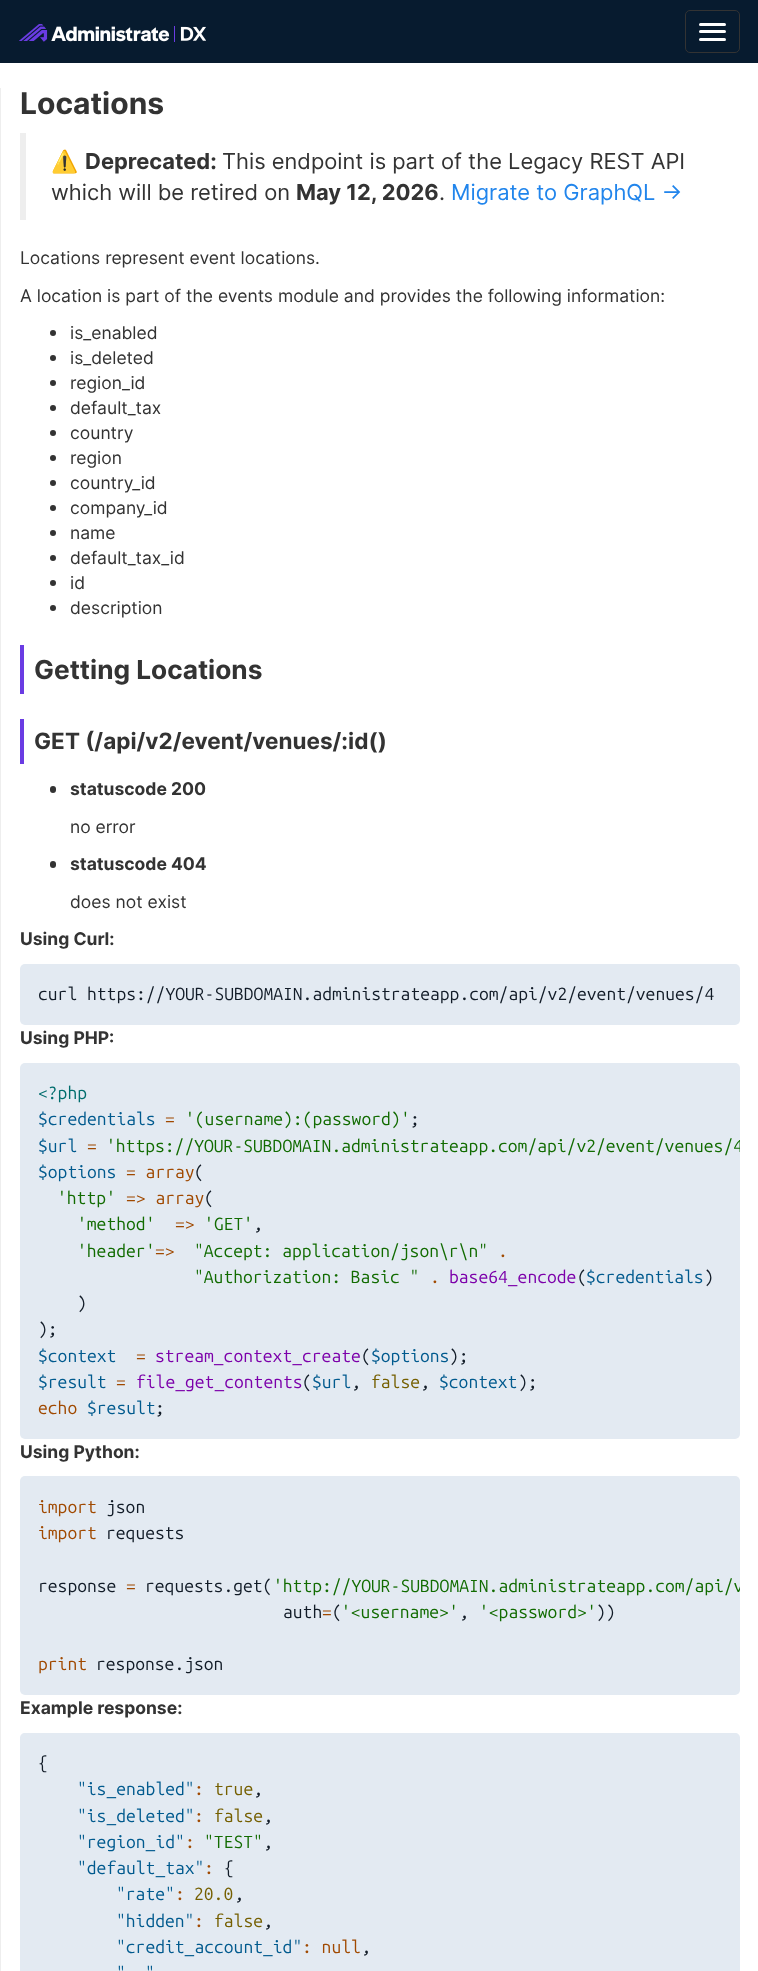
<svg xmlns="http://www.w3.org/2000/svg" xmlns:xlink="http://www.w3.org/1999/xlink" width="758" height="1971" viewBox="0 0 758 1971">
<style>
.cls-1{font:bold 30px Inter;fill:#333333}
.cls-2{font:21.9px Noto Color Emoji;fill:#333333}
.cls-3{font:bold 21.9px Inter;fill:#333333}
.cls-4{font:21.9px Inter;fill:#333333}
.cls-5{font:21.9px Inter;fill:#2185ec}
.cls-6{font:17.5px Inter;fill:#333333}
.cls-7{font:bold 26.25px Inter;fill:#333333}
.cls-8{font:bold 22.5px Inter;fill:#333333}
.cls-9{font:bold 17.5px Inter;fill:#333333}
.cls-10{font:17.5px Ubuntu Mono;fill:#111b27}
.cls-11{font:17.5px Ubuntu Mono;fill:#006d6d}
.cls-12{font:17.5px Ubuntu Mono;fill:#005a8e}
.cls-13{font:17.5px Ubuntu Mono;fill:#a04900}
.cls-14{font:17.5px Ubuntu Mono;fill:#116b00}
.cls-15{font:17.5px Ubuntu Mono;fill:#7c00aa}
.cls-16{font:17.5px Ubuntu Mono;fill:#755f00}
</style>
<defs>
<clipPath id="clip1"><rect x="20" y="1063" width="720" height="376" rx="5"/></clipPath>
<clipPath id="clip2"><rect x="20" y="1476" width="720" height="219" rx="5"/></clipPath>
</defs>
<rect width="100%" height="100%" fill="#ffffff"/>
<rect fill="#071b2f" x="0" y="0" width="758" height="63"/>
<image xlink:href="image0.png" x="19" y="24" width="187" height="18"/>
<rect fill="none" stroke="#333333" x="685.5" y="10.5" width="54" height="42" rx="4.5"/>
<rect fill="#ffffff" x="699" y="23" width="27" height="3" rx="1.5"/>
<rect fill="#ffffff" x="699" y="30" width="27" height="3" rx="1.5"/>
<rect fill="#ffffff" x="699" y="38" width="27" height="3" rx="1.5"/>
<rect fill="#eeeeee" x="0" y="88" width="1" height="1883"/>
<rect fill="#eeeeee" x="20" y="133" width="6" height="87"/>
<circle fill="#333333" cx="53" cy="333" r="3"/>
<circle fill="#333333" cx="53" cy="358" r="3"/>
<circle fill="#333333" cx="53" cy="383" r="3"/>
<circle fill="#333333" cx="53" cy="408" r="3"/>
<circle fill="#333333" cx="53" cy="433" r="3"/>
<circle fill="#333333" cx="53" cy="458" r="3"/>
<circle fill="#333333" cx="53" cy="483" r="3"/>
<circle fill="#333333" cx="53" cy="508" r="3"/>
<circle fill="#333333" cx="53" cy="533" r="3"/>
<circle fill="#333333" cx="53" cy="558" r="3"/>
<circle fill="#333333" cx="53" cy="583" r="3"/>
<circle fill="#333333" cx="53" cy="608" r="3"/>
<rect fill="#6a3ce3" x="20" y="645" width="4" height="49"/>
<rect fill="#6a3ce3" x="20" y="719" width="4" height="45"/>
<rect fill="#333333" x="50" y="786" width="6" height="7" rx="3"/>
<rect fill="#333333" x="50" y="861" width="6" height="7" rx="3"/>
<rect fill="#e3eaf2" x="20" y="964" width="720" height="61" rx="5"/>
<rect fill="#e3eaf2" x="20" y="1063" width="720" height="376" rx="5"/>
<rect fill="#e3eaf2" x="20" y="1476" width="720" height="219" rx="5"/>
<path fill="#e3eaf2" d="M25 1733H735C738 1733 740 1735 740 1738V1971H20V1738C20 1735 22 1733 25 1733Z"/>
<text class="cls-1" x="20" y="114">Locations</text>
<text class="cls-2" x="51" y="169">⚠️</text>
<text class="cls-3" x="85" y="169">Deprecated:</text>
<text class="cls-4" x="222" y="169">This endpoint is part of the Legacy REST API</text>
<text class="cls-4" x="51" y="200">which will be retired on</text>
<text class="cls-3" x="296" y="200">May 12, 2026</text>
<text class="cls-4" x="439" y="200">.</text>
<text class="cls-5" x="451" y="200">Migrate to GraphQL →</text>
<text class="cls-6" x="20" y="264">Locations represent event locations.</text>
<text class="cls-6" x="20" y="302">A location is part of the events module and provides the following information:</text>
<text class="cls-6"><tspan x="70" y="339">is_enabled</tspan><tspan x="70" y="364">is_deleted</tspan><tspan x="70" y="389">region_id</tspan><tspan x="70" y="414">default_tax</tspan><tspan x="70" y="439">country</tspan><tspan x="70" y="464">region</tspan><tspan x="70" y="489">country_id</tspan><tspan x="70" y="514">company_id</tspan><tspan x="70" y="539">name</tspan><tspan x="70" y="564">default_tax_id</tspan><tspan x="70" y="589">id</tspan><tspan x="70" y="614">description</tspan></text>
<text class="cls-7" x="34" y="679">Getting Locations</text>
<text class="cls-8" x="34" y="749">GET (/api/v2/event/venues/:id()</text>
<text class="cls-9" x="70" y="795">statuscode 200</text>
<text class="cls-6" x="70" y="833">no error</text>
<text class="cls-9" x="70" y="870">statuscode 404</text>
<text class="cls-6" x="70" y="908">does not exist</text>
<text class="cls-9" x="20" y="945">Using Curl:</text>
<text class="cls-10" x="38" y="1000">curl https://YOUR-SUBDOMAIN.administrateapp.com/api/v2/event/venues/4</text>
<text class="cls-9" x="20" y="1044">Using PHP:</text>
<text class="cls-11" x="38" y="1099">&lt;?php</text>
<text class="cls-12" x="38" y="1125">$credentials</text>
<text class="cls-13" x="165" y="1125">=</text>
<text class="cls-14" x="185" y="1125">'(username):(password)'</text>
<text class="cls-10" x="410" y="1125">;</text>
<text class="cls-12" x="38" y="1152">$url</text>
<text class="cls-13" x="87" y="1152">=</text>
<g clip-path="url(#clip1)">
<text class="cls-14" x="106" y="1152">'https://YOUR-SUBDOMAIN.administrateapp.com/api/v2/event/venues/4</text>
</g>
<text class="cls-12" x="38" y="1178">$options</text>
<text class="cls-13" x="126" y="1178">= array</text>
<text class="cls-10" x="194" y="1178">(</text>
<text class="cls-14" x="57" y="1204">'http'</text>
<text class="cls-13" x="126" y="1204">=&gt; array</text>
<text class="cls-10" x="204" y="1204">(</text>
<text class="cls-14" x="77" y="1230">'method'</text>
<text class="cls-13" x="175" y="1230">=&gt;</text>
<text class="cls-14" x="204" y="1230">'GET'</text>
<text class="cls-10" x="253" y="1230">,</text>
<text class="cls-14" x="77" y="1257">'header'</text>
<text class="cls-13" x="155" y="1257">=&gt;</text>
<text class="cls-14" x="194" y="1257">"Accept: application/json\r\n"</text>
<text class="cls-13" x="498" y="1257">.</text>
<text class="cls-14" x="194" y="1283">"Authorization: Basic "</text>
<text class="cls-13" x="430" y="1283">.</text>
<text class="cls-15" x="449" y="1283">base64_encode</text>
<text class="cls-10" x="577" y="1283">(</text>
<text class="cls-12" x="586" y="1283">$credentials</text>
<text class="cls-10" x="704" y="1283">)</text>
<text class="cls-10" x="77" y="1309">)</text>
<text class="cls-10" x="38" y="1335">);</text>
<text class="cls-12" x="38" y="1362">$context</text>
<text class="cls-13" x="136" y="1362">=</text>
<text class="cls-15" x="155" y="1362">stream_context_create</text>
<text class="cls-10" x="361" y="1362">(</text>
<text class="cls-12" x="371" y="1362">$options</text>
<text class="cls-10" x="449" y="1362">);</text>
<text class="cls-12" x="38" y="1388">$result</text>
<text class="cls-13" x="116" y="1388">=</text>
<text class="cls-15" x="136" y="1388">file_get_contents</text>
<text class="cls-10" x="302" y="1388">(</text>
<text class="cls-12" x="312" y="1388">$url</text>
<text class="cls-16" x="371" y="1388">false</text>
<text class="cls-12" x="439" y="1388">$context</text>
<text class="cls-10" x="518" y="1388">);</text>
<text class="cls-10" x="351" y="1388">,</text>
<text class="cls-10" x="420" y="1388">,</text>
<text class="cls-13" x="38" y="1414">echo</text>
<text class="cls-12" x="87" y="1414">$result</text>
<text class="cls-10" x="155" y="1414">;</text>
<text class="cls-9" x="20" y="1458">Using Python:</text>
<text class="cls-13" x="38" y="1513">import</text>
<text class="cls-10" x="106" y="1513">json</text>
<text class="cls-13" x="38" y="1539">import</text>
<text class="cls-10" x="106" y="1539">requests</text>
<text class="cls-10" x="38" y="1592">response</text>
<text class="cls-13" x="126" y="1592">=</text>
<text class="cls-10" x="145" y="1592">requests.get(</text>
<g clip-path="url(#clip2)">
<text class="cls-14" x="273" y="1592">'http://YOUR-SUBDOMAIN.administrateapp.com/api/v</text>
</g>
<text class="cls-10" x="283" y="1618">auth (</text>
<text class="cls-14" x="341" y="1618">'&lt;username&gt;'</text>
<text class="cls-14" x="479" y="1618">'&lt;password&gt;'</text>
<text class="cls-10" x="596" y="1618">))</text>
<text class="cls-13" x="322" y="1618">=</text>
<text class="cls-10" x="459" y="1618">,</text>
<text class="cls-13" x="38" y="1670">print</text>
<text class="cls-10" x="96" y="1670">response.json</text>
<text class="cls-9" x="20" y="1714">Example response:</text>
<text class="cls-10" x="38" y="1769">{</text>
<text class="cls-12" x="77" y="1795">"is_enabled"</text>
<text class="cls-13" x="194" y="1795">:</text>
<text class="cls-16" x="214" y="1795">true</text>
<text class="cls-10" x="253" y="1795">,</text>
<text class="cls-12" x="77" y="1822">"is_deleted"</text>
<text class="cls-13" x="194" y="1822">:</text>
<text class="cls-16" x="214" y="1822">false</text>
<text class="cls-10" x="263" y="1822">,</text>
<text class="cls-12" x="77" y="1848">"region_id"</text>
<text class="cls-13" x="185" y="1848">:</text>
<text class="cls-14" x="204" y="1848">"TEST"</text>
<text class="cls-10" x="263" y="1848">,</text>
<text class="cls-12" x="77" y="1874">"default_tax"</text>
<text class="cls-13" x="204" y="1874">:</text>
<text class="cls-10" x="224" y="1874">{</text>
<text class="cls-12" x="116" y="1900">"rate"</text>
<text class="cls-13" x="175" y="1900">:</text>
<text class="cls-16" x="194" y="1900">20.0</text>
<text class="cls-10" x="234" y="1900">,</text>
<text class="cls-12" x="116" y="1927">"hidden"</text>
<text class="cls-13" x="194" y="1927">:</text>
<text class="cls-16" x="214" y="1927">false</text>
<text class="cls-10" x="263" y="1927">,</text>
<text class="cls-12" x="116" y="1953">"credit_account_id"</text>
<text class="cls-13" x="302" y="1953">: null</text>
<text class="cls-10" x="361" y="1953">,</text>
<text class="cls-12" x="116" y="1979">"</text>
<text class="cls-12" x="145" y="1979">"</text>
</svg>
